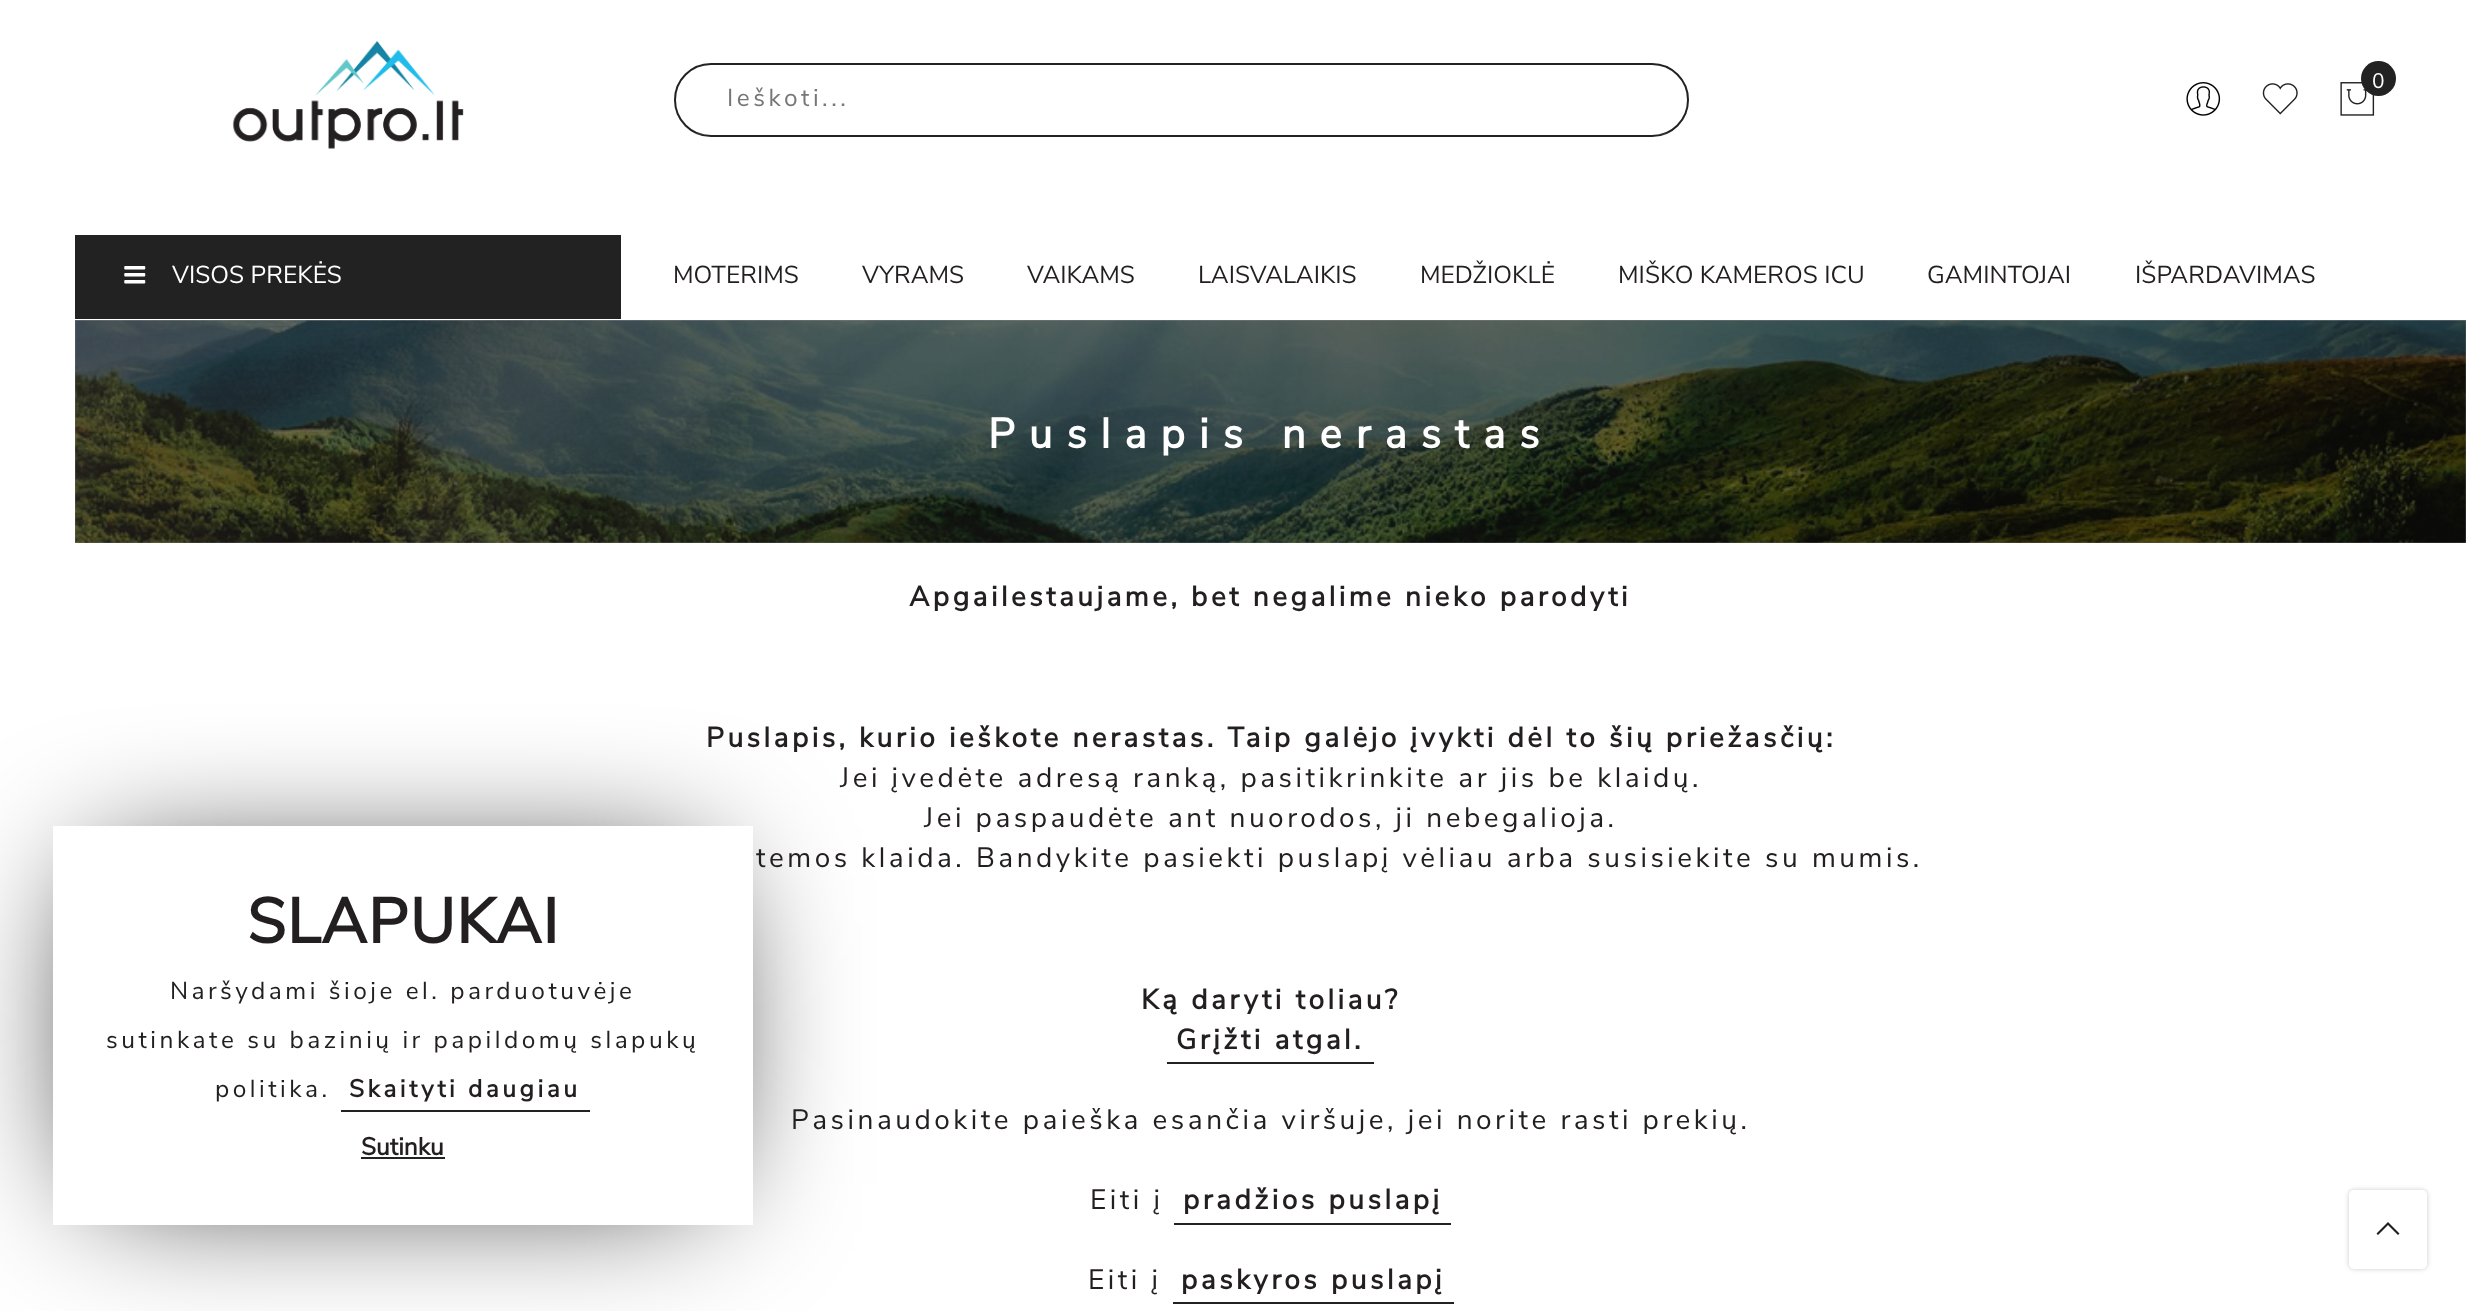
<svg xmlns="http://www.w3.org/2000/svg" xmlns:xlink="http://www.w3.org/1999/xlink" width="2488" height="1311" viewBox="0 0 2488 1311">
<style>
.cls-1{font:21px Nunito Sans;fill:#ffffff}
.cls-2{font:24.5px Nunito Sans;letter-spacing:3.5px;fill:#777777}
.cls-3{font:24.5px Nunito Sans;fill:#ffffff}
.cls-4{font:24.5px Nunito Sans;fill:#231f20}
.cls-5{font:bold 42px Nunito Sans;letter-spacing:14px;fill:#ffffff}
.cls-6{font:bold 28px Nunito Sans;letter-spacing:3.5px;fill:#231f20}
.cls-7{font:28px Nunito Sans;letter-spacing:3.5px;fill:#231f20}
.cls-8{font:bold 63px Nunito Sans;letter-spacing:1px;fill:#231f20}
.cls-9{font:24.5px Nunito Sans;letter-spacing:3.5px;fill:#231f20}
.cls-10{font:bold 24.5px Nunito Sans;letter-spacing:3.5px;fill:#231f20}
.cls-11{font:bold 24.5px Nunito Sans;fill:#231f20}
</style>
<rect width="100%" height="100%" fill="#ffffff"/>
<image xlink:href="image0.png" x="232" y="41" width="232" height="108"/>
<image xlink:href="image1.png" x="2186" y="82" width="35" height="34"/>
<image xlink:href="image2.png" x="2262" y="83" width="36" height="32"/>
<image xlink:href="image3.png" x="2340" y="82" width="35" height="34"/>
<circle fill="#222222" cx="2378.5" cy="78.5" r="17.5"/>
<rect fill="none" stroke="#222222" stroke-width="2" x="675" y="64" width="1013" height="72" rx="36"/>
<rect fill="#ffffff" fill-opacity="0.08" x="695" y="133" width="973" height="2"/>
<rect fill="#222222" x="75" y="235" width="546" height="84"/>
<image xlink:href="image4.png" x="124" y="266" width="22" height="18"/>
<rect fill="#7c7c7c" x="75" y="320" width="2391" height="223"/>
<image xlink:href="image5.png" x="75" y="320" width="2391" height="223"/>
<rect fill="#000000" filter="blur(72px)" x="95" y="875" width="609" height="308"/>
<rect fill="#ffffff" x="53" y="826" width="700" height="399"/>
<rect fill="#222222" x="341" y="1110" width="249" height="2"/>
<rect fill="#222222" x="361" y="1157" width="84" height="2"/>
<rect fill="#222222" x="1167" y="1062" width="207" height="2"/>
<rect fill="#222222" x="1174" y="1223" width="277" height="2"/>
<rect fill="#222222" x="1173" y="1302" width="281" height="2"/>
<rect fill="#000000" fill-opacity="0.2" filter="blur(2.5px)" x="2349" y="1190" width="78" height="79" rx="5"/>
<rect fill="#ffffff" x="2349" y="1190" width="78" height="79" rx="5"/>
<path fill="#231f20" d="M2389.5 1223.5L2388 1222L2376.5 1233.5L2378 1235L2388 1225L2398 1235L2399.5 1233.5Z"/>
<text class="cls-1" x="2372" y="88">0</text>
<text class="cls-2" x="727" y="106">Ieškoti...</text>
<text class="cls-3" x="172" y="283">VISOS PREKĖS</text>
<text class="cls-4" x="673" y="283">MOTERIMS</text>
<text class="cls-4" x="862" y="283">VYRAMS</text>
<text class="cls-4" x="1027" y="283">VAIKAMS</text>
<text class="cls-4" x="1198" y="283">LAISVALAIKIS</text>
<text class="cls-4" x="1420" y="283">MEDŽIOKLĖ</text>
<text class="cls-4" x="1618" y="283">MIŠKO KAMEROS ICU</text>
<text class="cls-4" x="1927" y="283">GAMINTOJAI</text>
<text class="cls-4" x="2135" y="283">IŠPARDAVIMAS</text>
<text class="cls-5" x="988" y="448">Puslapis nerastas</text>
<text class="cls-6" x="909" y="606">Apgailestaujame, bet negalime nieko parodyti</text>
<text class="cls-6" x="706" y="747">Puslapis, kurio ieškote nerastas. Taip galėjo įvykti dėl to šių priežasčių:</text>
<text class="cls-7" x="840" y="787">Jei įvedėte adresą ranką, pasitikrinkite ar jis be klaidų.</text>
<text class="cls-7" x="924" y="827">Jei paspaudėte ant nuorodos, ji nebegalioja.</text>
<text class="cls-7" x="756" y="867">temos klaida. Bandykite pasiekti puslapį vėliau arba susisiekite su mumis.</text>
<text class="cls-8" x="247" y="943">SLAPUKAI</text>
<text class="cls-9" x="170" y="999">Naršydami šioje el. parduotuvėje</text>
<text class="cls-9" x="106" y="1048">sutinkate su bazinių ir papildomų slapukų</text>
<text class="cls-9" x="215" y="1097">politika.</text>
<text class="cls-10" x="349" y="1097">Skaityti daugiau</text>
<text class="cls-11" x="361" y="1155">Sutinku</text>
<text class="cls-6" x="1141" y="1009">Ką daryti toliau?</text>
<text class="cls-6" x="1176" y="1049">Grįžti atgal.</text>
<text class="cls-7" x="791" y="1129">Pasinaudokite paieška esančia viršuje, jei norite rasti prekių.</text>
<text class="cls-7" x="1090" y="1209">Eiti į</text>
<text class="cls-6" x="1183" y="1209">pradžios puslapį</text>
<text class="cls-7" x="1088" y="1289">Eiti į</text>
<text class="cls-6" x="1181" y="1289">paskyros puslapį</text>
</svg>
